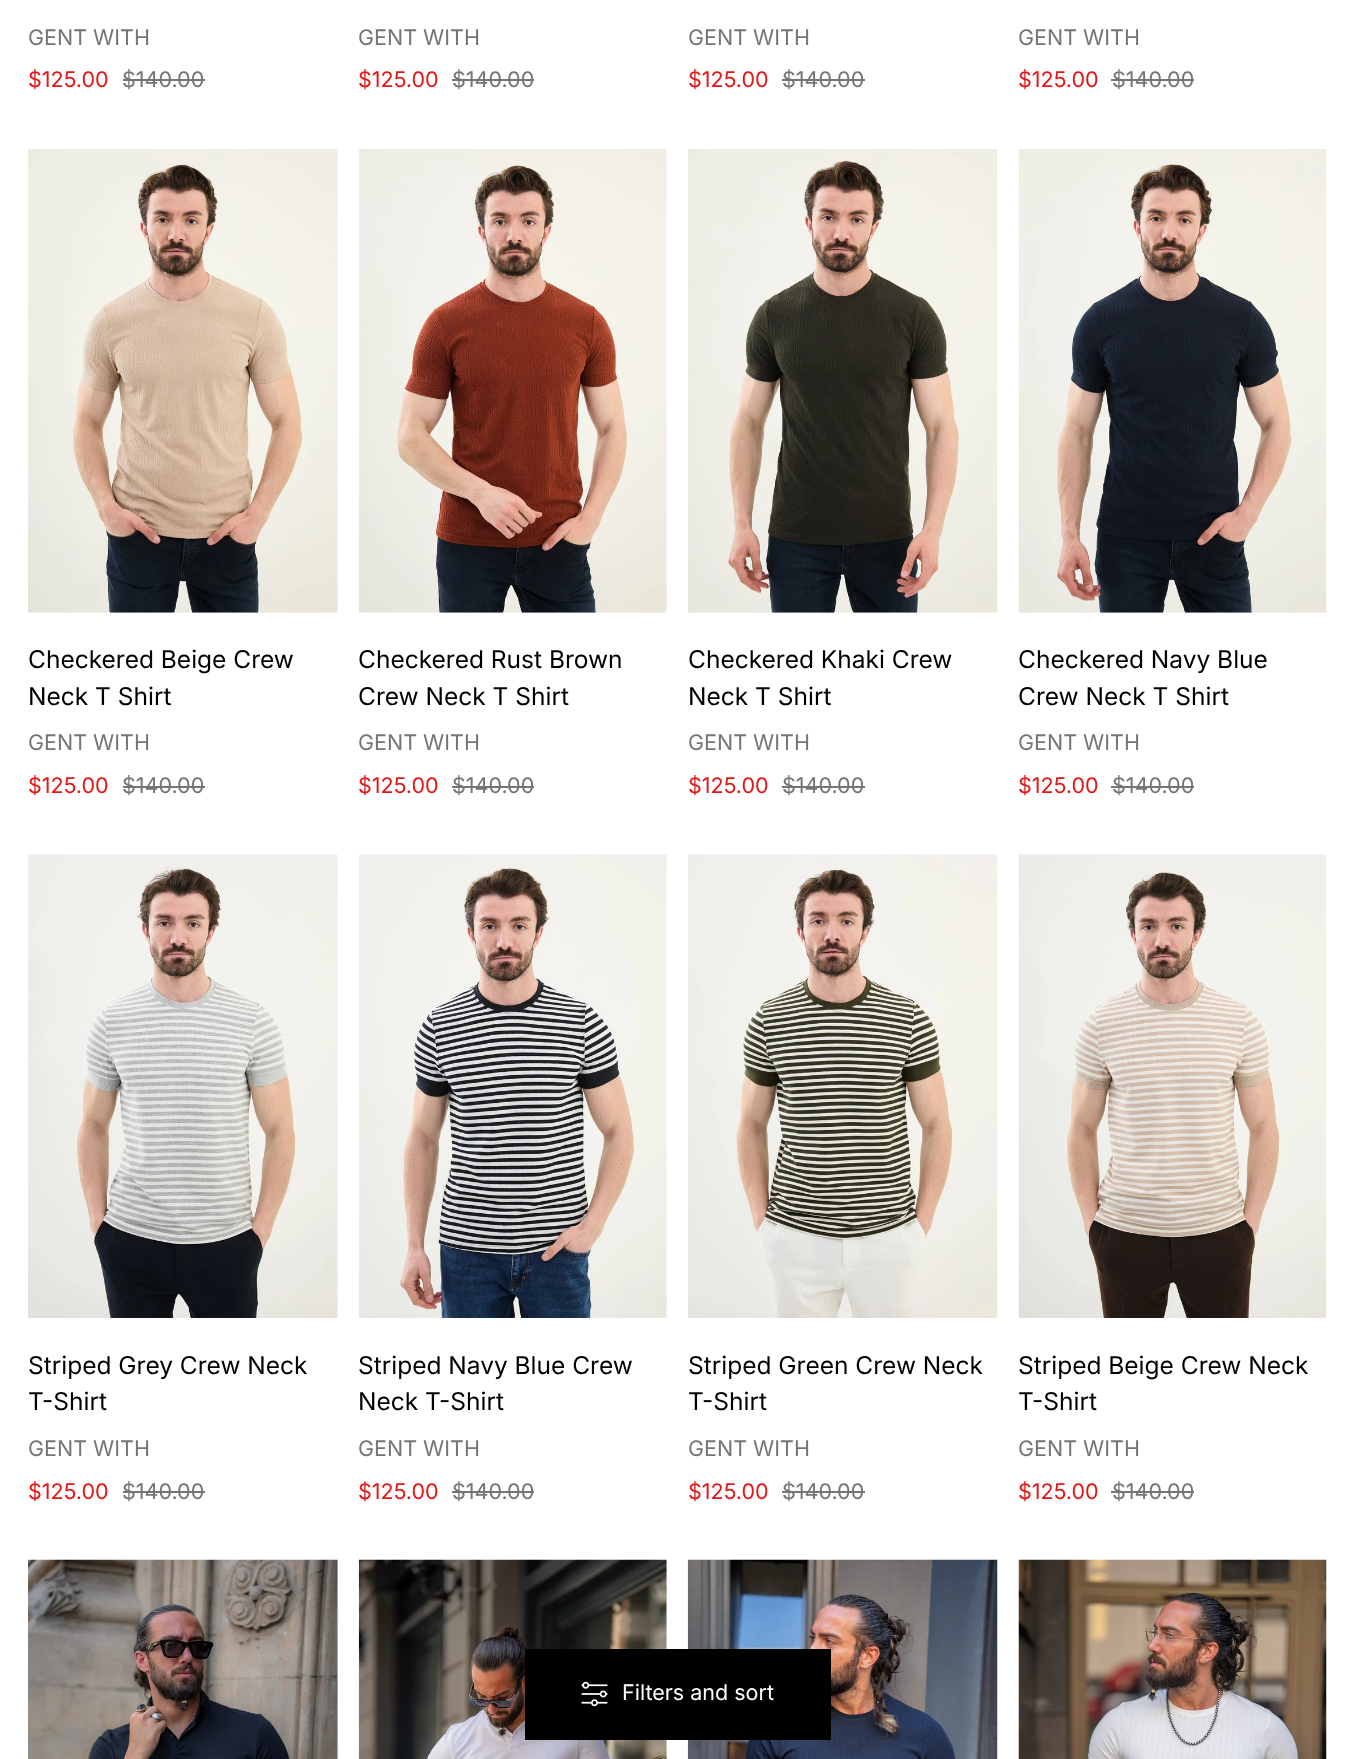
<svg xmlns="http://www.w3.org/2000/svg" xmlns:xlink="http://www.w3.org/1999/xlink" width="1354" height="1759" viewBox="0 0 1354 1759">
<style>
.cls-1{font:21.5px Inter;fill:#757575}
.cls-2{font:21.5px Inter;fill:#e41616}
.cls-3{font:24.5px Inter;fill:#000000}
.cls-4{font:21.5px Inter;fill:#ffffff}
</style>
<rect width="100%" height="100%" fill="#ffffff"/>
<rect fill="#757575" x="123" y="79" width="82" height="2"/>
<rect fill="#757575" x="452" y="79" width="82" height="2"/>
<rect fill="#757575" x="782" y="79" width="83" height="2"/>
<rect fill="#757575" x="1111" y="79" width="83" height="2"/>
<image xlink:href="image0.png" x="28" y="149" width="310" height="464"/>
<rect fill="#757575" x="123" y="786" width="82" height="2"/>
<image xlink:href="image1.png" x="359" y="149" width="308" height="464"/>
<rect fill="#757575" x="452" y="786" width="82" height="2"/>
<image xlink:href="image2.png" x="688" y="149" width="310" height="464"/>
<rect fill="#757575" x="782" y="786" width="83" height="2"/>
<image xlink:href="image3.png" x="1018" y="149" width="309" height="464"/>
<rect fill="#757575" x="1111" y="786" width="83" height="2"/>
<image xlink:href="image4.png" x="28" y="854" width="310" height="464"/>
<rect fill="#757575" x="123" y="1491" width="82" height="2"/>
<image xlink:href="image5.png" x="359" y="854" width="308" height="464"/>
<rect fill="#757575" x="452" y="1491" width="82" height="2"/>
<image xlink:href="image6.png" x="688" y="854" width="310" height="464"/>
<rect fill="#757575" x="782" y="1491" width="83" height="2"/>
<image xlink:href="image7.png" x="1018" y="854" width="309" height="464"/>
<rect fill="#757575" x="1111" y="1491" width="83" height="2"/>
<image xlink:href="image8.png" x="28" y="1559" width="310" height="200"/>
<image xlink:href="image9.png" x="358" y="1559" width="309" height="200"/>
<image xlink:href="image10.png" x="687" y="1559" width="311" height="200"/>
<image xlink:href="image11.png" x="1018" y="1559" width="309" height="200"/>
<rect fill="#000000" x="525" y="1649" width="306" height="91"/>
<image xlink:href="image12.png" x="581" y="1681" width="27" height="26"/>
<text class="cls-1" x="28" y="45">GENT WITH</text>
<text class="cls-2" x="28" y="87">$125.00</text>
<text class="cls-1" x="122" y="87">$140.00</text>
<text class="cls-1" x="358" y="45">GENT WITH</text>
<text class="cls-2" x="358" y="87">$125.00</text>
<text class="cls-1" x="452" y="87">$140.00</text>
<text class="cls-1" x="688" y="45">GENT WITH</text>
<text class="cls-2" x="688" y="87">$125.00</text>
<text class="cls-1" x="782" y="87">$140.00</text>
<text class="cls-1" x="1018" y="45">GENT WITH</text>
<text class="cls-2" x="1018" y="87">$125.00</text>
<text class="cls-1" x="1112" y="87">$140.00</text>
<text class="cls-3"><tspan x="28" y="668">Checkered Beige Crew</tspan><tspan x="28" y="705">Neck T Shirt</tspan></text>
<text class="cls-1" x="28" y="750">GENT WITH</text>
<text class="cls-2" x="28" y="793">$125.00</text>
<text class="cls-1" x="122" y="793">$140.00</text>
<text class="cls-3"><tspan x="358" y="668">Checkered Rust Brown</tspan><tspan x="358" y="705">Crew Neck T Shirt</tspan></text>
<text class="cls-1" x="358" y="750">GENT WITH</text>
<text class="cls-2" x="358" y="793">$125.00</text>
<text class="cls-1" x="452" y="793">$140.00</text>
<text class="cls-3"><tspan x="688" y="668">Checkered Khaki Crew</tspan><tspan x="688" y="705">Neck T Shirt</tspan></text>
<text class="cls-1" x="688" y="750">GENT WITH</text>
<text class="cls-2" x="688" y="793">$125.00</text>
<text class="cls-1" x="782" y="793">$140.00</text>
<text class="cls-3"><tspan x="1018" y="668">Checkered Navy Blue</tspan><tspan x="1018" y="705">Crew Neck T Shirt</tspan></text>
<text class="cls-1" x="1018" y="750">GENT WITH</text>
<text class="cls-2" x="1018" y="793">$125.00</text>
<text class="cls-1" x="1112" y="793">$140.00</text>
<text class="cls-3"><tspan x="28" y="1374">Striped Grey Crew Neck</tspan><tspan x="28" y="1410">T-Shirt</tspan></text>
<text class="cls-1" x="28" y="1456">GENT WITH</text>
<text class="cls-2" x="28" y="1499">$125.00</text>
<text class="cls-1" x="122" y="1499">$140.00</text>
<text class="cls-3"><tspan x="358" y="1374">Striped Navy Blue Crew</tspan><tspan x="358" y="1410">Neck T-Shirt</tspan></text>
<text class="cls-1" x="358" y="1456">GENT WITH</text>
<text class="cls-2" x="358" y="1499">$125.00</text>
<text class="cls-1" x="452" y="1499">$140.00</text>
<text class="cls-3"><tspan x="688" y="1374">Striped Green Crew Neck</tspan><tspan x="688" y="1410">T-Shirt</tspan></text>
<text class="cls-1" x="688" y="1456">GENT WITH</text>
<text class="cls-2" x="688" y="1499">$125.00</text>
<text class="cls-1" x="782" y="1499">$140.00</text>
<text class="cls-3"><tspan x="1018" y="1374">Striped Beige Crew Neck</tspan><tspan x="1018" y="1410">T-Shirt</tspan></text>
<text class="cls-1" x="1018" y="1456">GENT WITH</text>
<text class="cls-2" x="1018" y="1499">$125.00</text>
<text class="cls-1" x="1112" y="1499">$140.00</text>
<text class="cls-4" x="622" y="1700">Filters and sort</text>
</svg>
